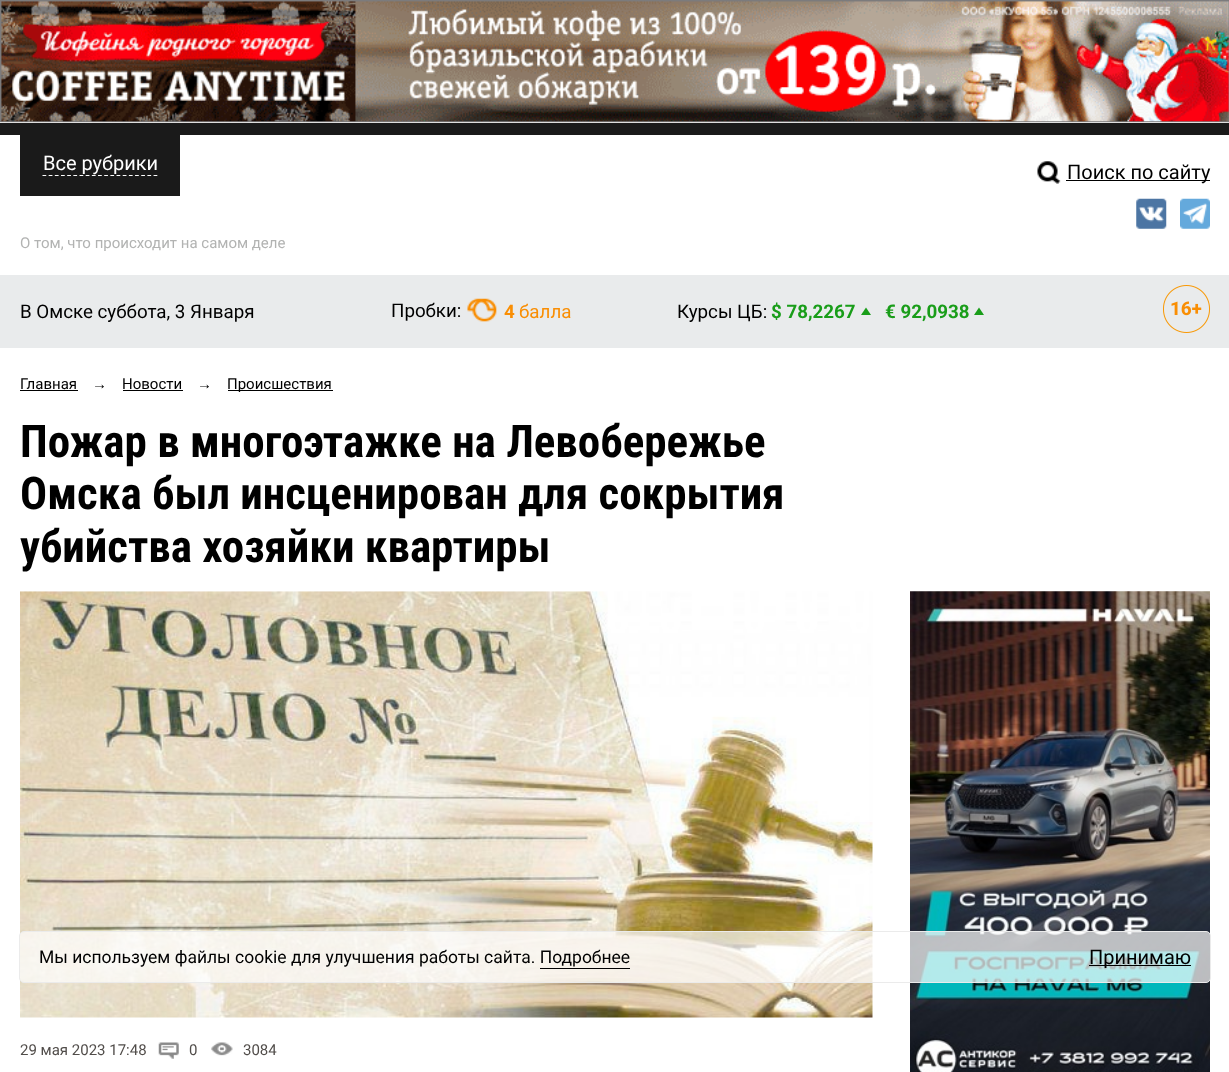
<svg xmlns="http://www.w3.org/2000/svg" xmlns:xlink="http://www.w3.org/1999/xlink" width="1229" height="1072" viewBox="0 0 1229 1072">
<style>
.cls-1{font:20px Roboto;fill:#ffffff}
.cls-2{font:20px Roboto;fill:#000000}
.cls-3{font:15px Roboto;fill:#b2b3b2}
.cls-4{font:18.75px Roboto;fill:#000000}
.cls-5{font:bold 18.75px Roboto;fill:#f98e04}
.cls-6{font:18.75px Roboto;fill:#f98e04}
.cls-7{font:bold 18.75px Roboto;fill:#199d19}
.cls-8{font:15px Roboto;fill:#000000}
.cls-9{font:15px Liberation Sans;fill:#000000}
.cls-10{font:bold 45px Roboto Condensed;fill:#000000}
.cls-11{font:15px Roboto;fill:#514d4a}
.cls-12{font:17.5px Roboto;fill:#000000}
</style>
<rect width="100%" height="100%" fill="#ffffff"/>
<image xlink:href="image0.png" x="0" y="0" width="1229" height="123"/>
<rect fill="#1a1a1a" x="0" y="123" width="1229" height="12"/>
<rect fill="#1a1a1a" x="20" y="135" width="160" height="61"/>
<path fill="none" stroke="#ffffff" stroke-width="1.2" stroke-dasharray="3.75 2.42" d="M42.5 175.5H157.5"/>
<image xlink:href="image1.png" x="1037" y="161" width="24" height="23"/>
<rect fill="#000000" x="1066" y="180" width="144" height="1"/>
<image xlink:href="image2.png" x="1136" y="198" width="31" height="31"/>
<image xlink:href="image3.png" x="1180" y="198" width="30" height="31"/>
<rect fill="#e9ebec" x="0" y="275" width="1229" height="73"/>
<image xlink:href="image4.png" x="467" y="298" width="30" height="24"/>
<path fill="#199d19" d="M871 315H861L866 307.5Z"/>
<path fill="#199d19" d="M984 315H974L979 307.5Z"/>
<image xlink:href="image5.png" x="1163" y="285" width="47" height="48"/>
<rect fill="#000000" x="20" y="390" width="58" height="1"/>
<rect fill="#000000" x="123" y="390" width="60" height="1"/>
<rect fill="#000000" x="228" y="390" width="105" height="1"/>
<image xlink:href="image6.png" x="20" y="591" width="853" height="427"/>
<image xlink:href="image7.png" x="158" y="1042" width="21" height="17"/>
<image xlink:href="image8.png" x="211" y="1042" width="22" height="14"/>
<image xlink:href="image9.png" x="910" y="591" width="300" height="481"/>
<rect fill="#ffffff" fill-opacity="0.7" stroke="#ebebeb" x="19.5" y="931.5" width="1191" height="51" rx="4.5"/>
<rect fill="#000000" x="540" y="968" width="90" height="1"/>
<rect fill="#000000" x="1089" y="965" width="102" height="1"/>
<text class="cls-1" x="43" y="170">Все рубрики</text>
<text class="cls-2" x="1067" y="179">Поиск по сайту</text>
<text class="cls-3" x="20" y="248">О том, что происходит на самом деле</text>
<text class="cls-4" x="20" y="318">В Омске суббота, 3 Января</text>
<text class="cls-4" x="391" y="317">Пробки:</text>
<text class="cls-5" x="504" y="318">4</text>
<text class="cls-6" x="519" y="318">балла</text>
<text class="cls-4" x="677" y="318">Курсы ЦБ:</text>
<text class="cls-7" x="771" y="318">$ 78,2267</text>
<text class="cls-7" x="885" y="318">€ 92,0938</text>
<text class="cls-8" x="20" y="389">Главная</text>
<text class="cls-9" x="92" y="389">→</text>
<text class="cls-8" x="122" y="389">Новости</text>
<text class="cls-9" x="197" y="389">→</text>
<text class="cls-8" x="227" y="389">Происшествия</text>
<text class="cls-10"><tspan x="20" y="457">Пожар в многоэтажке на Левобережье</tspan><tspan x="20" y="509">Омска был инсценирован для сокрытия</tspan><tspan x="20" y="562">убийства хозяйки квартиры</tspan></text>
<text class="cls-11" x="20" y="1055">29 мая 2023 17:48</text>
<text class="cls-11" x="189" y="1055">0</text>
<text class="cls-11" x="243" y="1055">3084</text>
<text class="cls-12" x="39" y="963">Мы используем файлы cookie для улучшения работы сайта. Подробнее</text>
<text class="cls-2" x="1089" y="964">Принимаю</text>
</svg>
